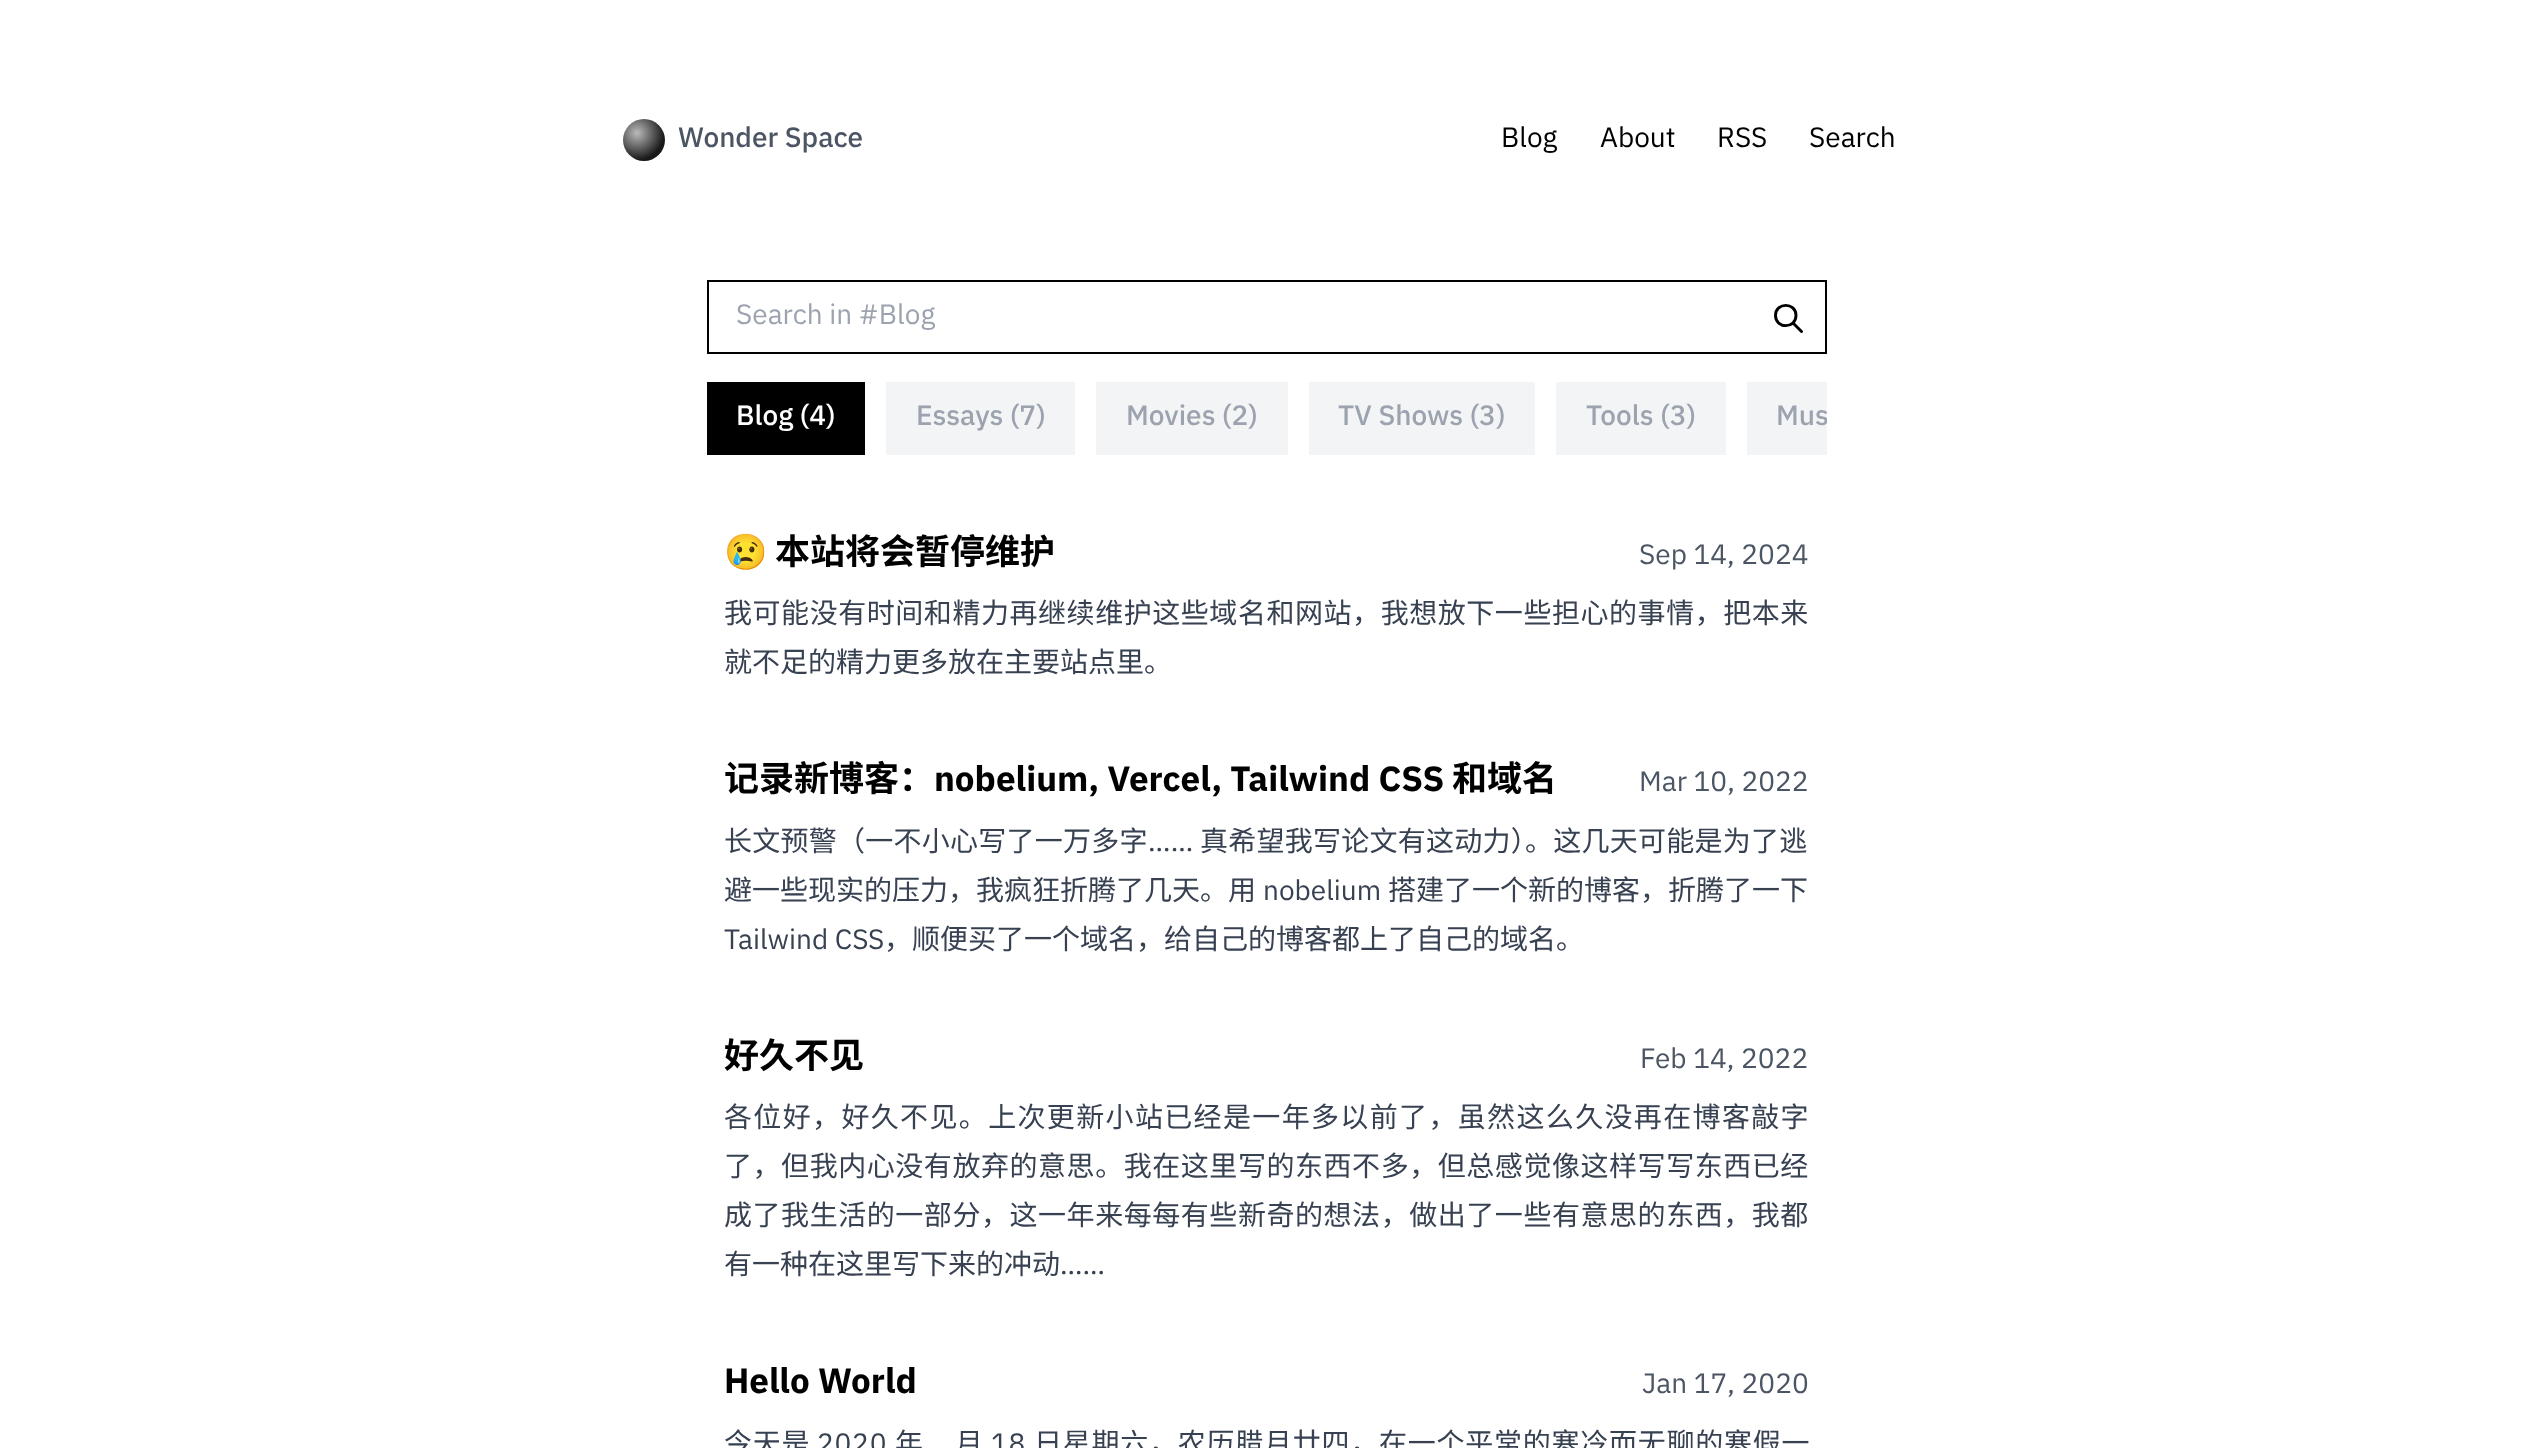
<svg xmlns="http://www.w3.org/2000/svg" xmlns:xlink="http://www.w3.org/1999/xlink" width="2532" height="1448" viewBox="0 0 2532 1448">
<style>
.cls-1{font:500 28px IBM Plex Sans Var;fill:#4b5563}
.cls-2{font:28px IBM Plex Sans Var;fill:#000000}
.cls-3{font:28px IBM Plex Sans Var;fill:#9ca3af}
.cls-4{font:500 28px IBM Plex Sans Var;fill:#ffffff}
.cls-5{font:500 28px IBM Plex Sans Var;fill:#9ca3af}
.cls-6{font:bold 35px Noto Color Emoji;fill:#000000}
.cls-7{font:bold 35px Noto Sans CJK SC;fill:#000000}
.cls-8{font:28px IBM Plex Sans Var;fill:#4b5563}
.cls-9{font:28px Noto Sans CJK SC;letter-spacing:0.55px;fill:#374151}
.cls-10{font:28px Noto Sans CJK SC;fill:#374151}
.cls-11{font:bold 35px IBM Plex Sans Var;fill:#000000}
.cls-12{font:28px Noto Sans CJK SC;letter-spacing:0.25px;fill:#374151}
.cls-13{font:28px IBM Plex Sans Var;letter-spacing:0.25px;fill:#374151}
.cls-14{font:28px IBM Plex Sans Var;fill:#374151}
.cls-15{font:28px Noto Sans CJK SC;letter-spacing:1.35px;fill:#374151}
.cls-16{font:28px Noto Sans CJK SC;letter-spacing:0.75px;fill:#374151}
.cls-17{font:28px IBM Plex Sans Var;letter-spacing:0.75px;fill:#374151}
</style>
<defs>
<radialGradient id="g1" gradientUnits="userSpaceOnUse" cx="637" cy="133" r="27"><stop offset="0" stop-color="#bababa"/><stop offset="0.35" stop-color="#828282"/><stop offset="1" stop-color="#191919"/></radialGradient>
<clipPath id="clip1"><rect x="707" y="382" width="1120" height="73"/></clipPath>
</defs>
<rect width="100%" height="100%" fill="#ffffff"/>
<circle fill="url(#g1)" cx="644" cy="140" r="21"/>
<rect fill="none" stroke="#000000" stroke-width="2" x="708" y="281" width="1118" height="72"/>
<path fill="none" stroke="#000000" stroke-width="2.9" stroke-linecap="round" stroke-linejoin="round" d="M1801.5 331.5L1793 323M1796 315.5C1796 329 1775.5 329 1775.5 315.5C1775.5 302 1796 302 1796 315.5Z"/>
<rect fill="#000000" x="707" y="382" width="158" height="73"/>
<rect fill="#f3f4f6" x="886" y="382" width="189" height="73"/>
<rect fill="#f3f4f6" x="1096" y="382" width="192" height="73"/>
<rect fill="#f3f4f6" x="1309" y="382" width="226" height="73"/>
<rect fill="#f3f4f6" x="1556" y="382" width="170" height="73"/>
<rect fill="#f3f4f6" x="1747" y="382" width="80" height="73"/>
<text class="cls-1" x="678" y="147">Wonder Space</text>
<text class="cls-2" x="1501" y="147">Blog</text>
<text class="cls-2" x="1600" y="147">About</text>
<text class="cls-2" x="1717" y="147">RSS</text>
<text class="cls-2" x="1809" y="147">Search</text>
<text class="cls-3" x="736" y="324">Search in #Blog</text>
<text class="cls-4" x="736" y="425">Blog (4)</text>
<text class="cls-5" x="916" y="425">Essays (7)</text>
<text class="cls-5" x="1126" y="425">Movies (2)</text>
<text class="cls-5" x="1338" y="425">TV Shows (3)</text>
<text class="cls-5" x="1586" y="425">Tools (3)</text>
<g clip-path="url(#clip1)">
<text class="cls-5" x="1776" y="425">Mus</text>
</g>
<text class="cls-6" x="724" y="564">😢</text>
<text class="cls-7" x="775" y="564">本站将会暂停维护</text>
<text class="cls-8" x="1639" y="564">Sep 14, 2024</text>
<text class="cls-9" x="724" y="623">我可能没有时间和精力再继续维护这些域名和网站，我想放下一些担心的事情，把本来</text>
<text class="cls-10" x="724" y="672">就不足的精力更多放在主要站点里。</text>
<text class="cls-7" x="724" y="791">记录新博客：</text>
<text class="cls-11" x="934" y="791">nobelium, Vercel, Tailwind CSS</text>
<text class="cls-7" x="1452" y="791">和域名</text>
<text class="cls-8" x="1639" y="791">Mar 10, 2022</text>
<text class="cls-12" x="724" y="851">长文预警（一不小心写了一万多字</text>
<text class="cls-13" x="1148" y="851">……</text>
<text class="cls-12" x="1200" y="851">真希望我写论文有这动力）。这几天可能是为了逃</text>
<text class="cls-10" x="724" y="900">避一些现实的压力，我疯狂折腾了几天。用</text>
<text class="cls-14" x="1263" y="900">nobelium</text>
<text class="cls-10" x="1388" y="900">搭建了一个新的博客，折腾了一下</text>
<text class="cls-14" x="724" y="949">Tailwind CSS</text>
<text class="cls-10" x="884" y="949">，顺便买了一个域名，给自己的博客都上了自己的域名。</text>
<text class="cls-7" x="724" y="1068">好久不见</text>
<text class="cls-8" x="1640" y="1068">Feb 14, 2022</text>
<text class="cls-15" x="724" y="1127">各位好，好久不见。上次更新小站已经是一年多以前了，虽然这么久没再在博客敲字</text>
<text class="cls-9"><tspan x="724" y="1176">了，但我内心没有放弃的意思。我在这里写的东西不多，但总感觉像这样写写东西已经</tspan><tspan x="724" y="1225">成了我生活的一部分，这一年来每每有些新奇的想法，做出了一些有意思的东西，我都</tspan></text>
<text class="cls-10" x="724" y="1274">有一种在这里写下来的冲动</text>
<text class="cls-14" x="1060" y="1274">……</text>
<text class="cls-11" x="724" y="1393">Hello World</text>
<text class="cls-8" x="1642" y="1393">Jan 17, 2020</text>
<text class="cls-16" x="724" y="1453">今天是</text>
<text class="cls-17" x="817" y="1453">2020</text>
<text class="cls-16" x="895" y="1453">年</text>
<text class="cls-16" x="955" y="1453">月</text>
<text class="cls-17" x="991" y="1453">18</text>
<text class="cls-16" x="1034" y="1453">日星期六，农历腊月廿四，在一个平常的寒冷而无聊的寒假一</text>
</svg>
